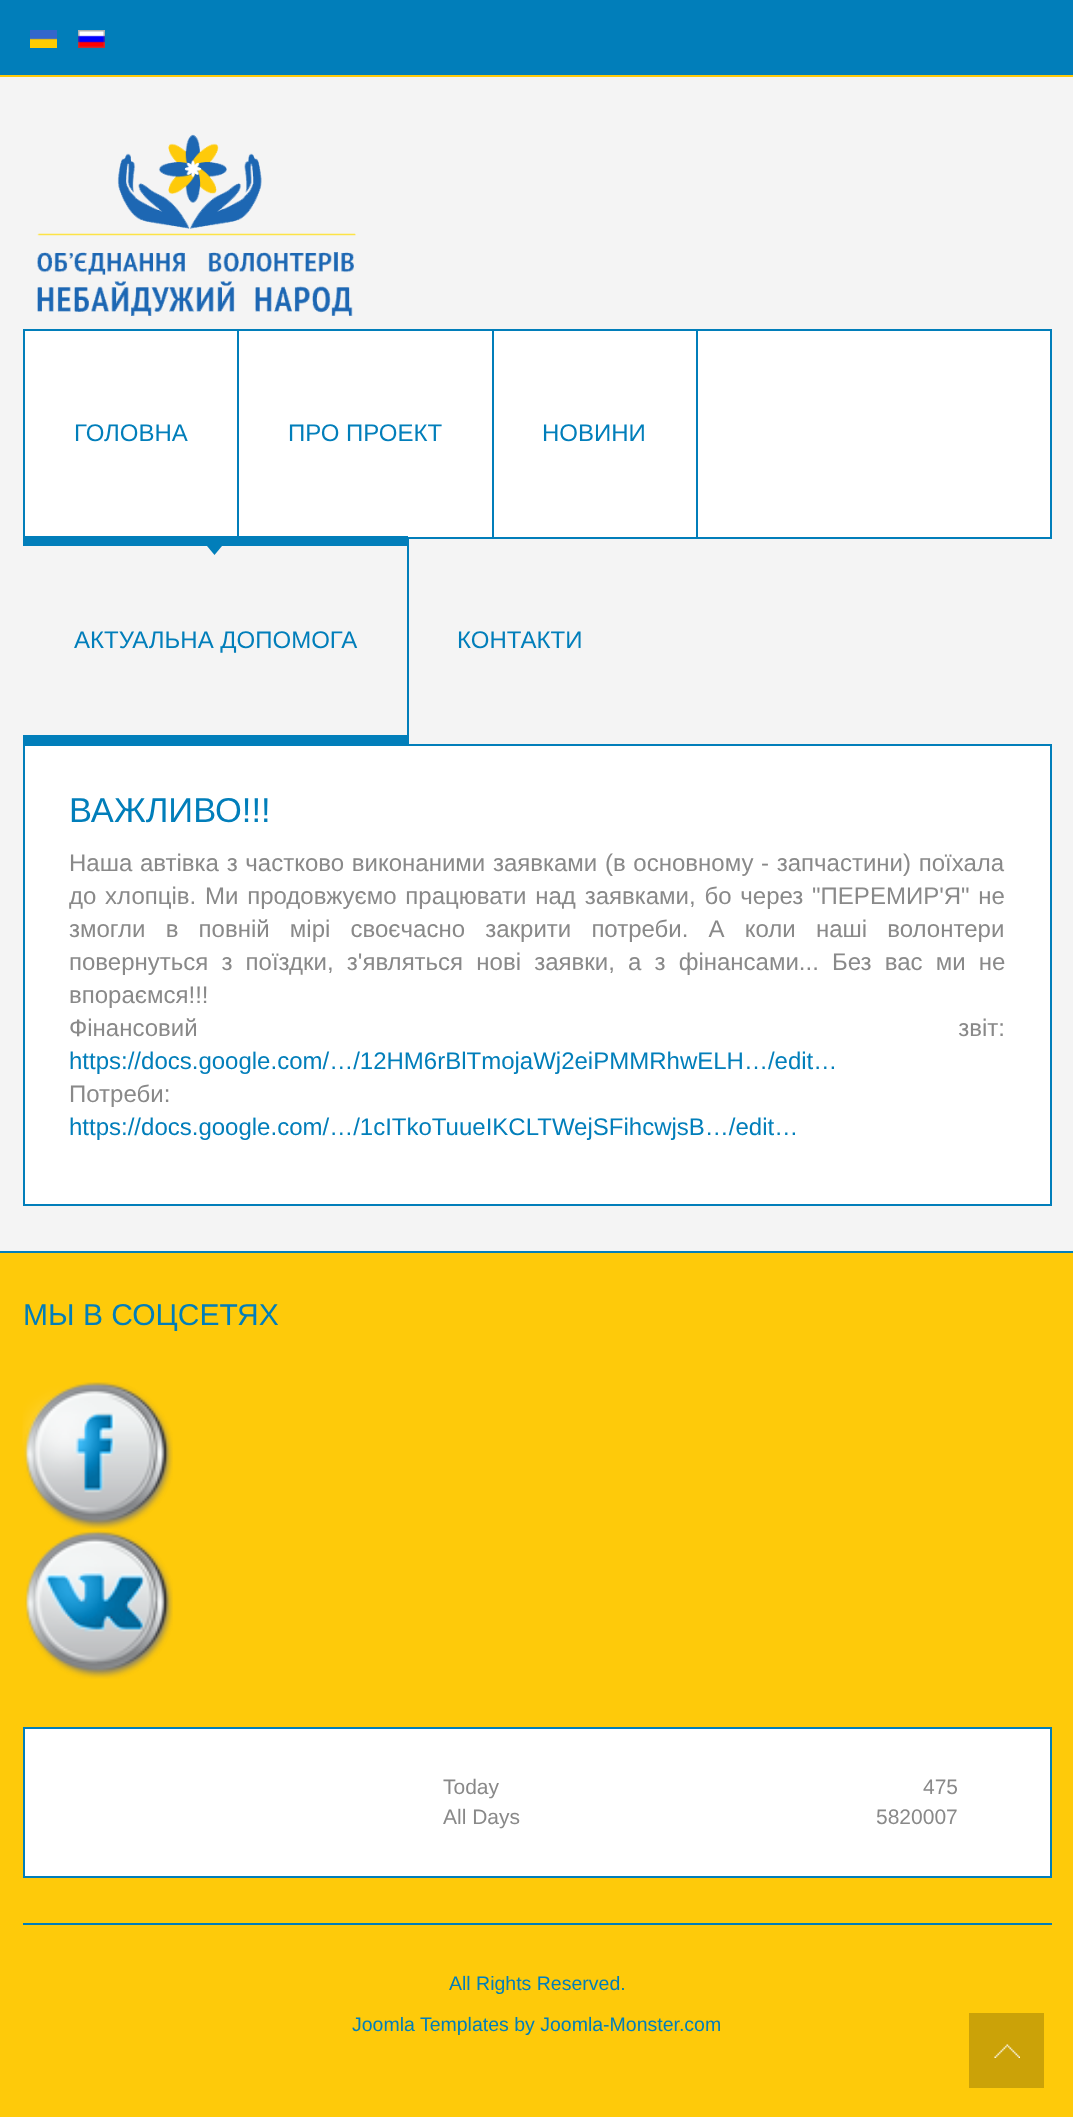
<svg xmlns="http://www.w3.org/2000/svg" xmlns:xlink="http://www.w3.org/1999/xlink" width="1073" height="2117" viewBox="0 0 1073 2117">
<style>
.cls-1{font:24px Liberation Sans;fill:#017eba}
.cls-2{font:34.5px Liberation Sans;fill:#017eba}
.cls-3{font:24px Liberation Sans;fill:#898989}
.cls-4{font:30px Liberation Sans;fill:#017eba}
.cls-5{font:21px Liberation Sans;fill:#898989}
.cls-6{font:19.5px Liberation Sans;fill:#017eba}
</style>
<rect width="100%" height="100%" fill="#feca0a"/>
<rect fill="#f4f4f4" x="0" y="77" width="1073" height="1174"/>
<rect fill="#017eba" x="0" y="0" width="1073" height="75"/>
<image xlink:href="image0.png" x="30" y="30" width="27" height="18"/>
<image xlink:href="image1.png" x="78" y="30" width="27" height="18"/>
<image xlink:href="image2.png" x="37" y="134" width="319" height="182"/>
<rect fill="#ffffff" stroke="#017eba" stroke-width="2" x="24" y="330" width="1027" height="208"/>
<rect fill="#017eba" x="237" y="330" width="2" height="209"/>
<rect fill="#017eba" x="492" y="330" width="2" height="209"/>
<rect fill="#017eba" x="696" y="330" width="2" height="209"/>
<rect fill="#ffffff" stroke="#017eba" stroke-width="2" x="24" y="745" width="1027" height="460"/>
<rect fill="#017eba" x="407" y="537" width="2" height="209"/>
<rect fill="#017eba" x="23" y="536" width="385" height="10"/>
<rect fill="#017eba" x="23" y="735" width="384" height="9"/>
<path fill="#017eba" d="M207 546H222L214.5 555Z"/>
<rect fill="#017eba" x="0" y="1251" width="1073" height="2"/>
<rect fill="#017eba" x="23" y="1923" width="1029" height="2"/>
<image xlink:href="image3.png" x="22" y="1382" width="151" height="147"/>
<image xlink:href="image4.png" x="25" y="1530" width="148" height="149"/>
<rect fill="#ffffff" stroke="#017eba" stroke-width="2" x="24" y="1728" width="1027" height="149"/>
<rect fill="#cba208" x="969" y="2013" width="75" height="75"/>
<image xlink:href="image5.png" x="994" y="2044" width="26" height="14"/>
<text class="cls-1" x="74" y="441">ГОЛОВНА</text>
<text class="cls-1" x="288" y="441">ПРО ПРОЕКТ</text>
<text class="cls-1" x="542" y="441">НОВИНИ</text>
<text class="cls-1" x="74" y="648">АКТУАЛЬНА ДОПОМОГА</text>
<text class="cls-1" x="457" y="648">КОНТАКТИ</text>
<text class="cls-2" x="69" y="822">ВАЖЛИВО!!!</text>
<text class="cls-3"><tspan x="69" y="871" word-spacing="1">Наша автівка з частково виконаними заявками (в основному - запчастини) поїхала</tspan><tspan x="69" y="904" word-spacing="2.1">до хлопців. Ми продовжуємо працювати над заявками, бо через "ПЕРЕМИР'Я" не</tspan><tspan x="69" y="937" word-spacing="13.5">змогли в повній мірі своєчасно закрити потреби. А коли наші волонтери</tspan><tspan x="69" y="970" word-spacing="6.5">повернуться з поїздки, з'являться нові заявки, а з фінансами... Без вас ми не</tspan><tspan x="69" y="1003">впораємся!!!</tspan><tspan x="69" y="1036" word-spacing="754">Фінансовий звіт:</tspan></text>
<text class="cls-1" x="69" y="1069">https://docs.google.com/…/12HM6rBlTmojaWj2eiPMMRhwELH…/edit…</text>
<text class="cls-3" x="69" y="1102">Потреби:</text>
<text class="cls-1" x="69" y="1135">https://docs.google.com/…/1cITkoTuueIKCLTWejSFihcwjsB…/edit…</text>
<text class="cls-4" x="23" y="1325">МЫ В СОЦСЕТЯХ</text>
<text class="cls-5" x="443" y="1794">Today</text>
<text class="cls-5" x="923" y="1794">475</text>
<text class="cls-5" x="443" y="1824">All Days</text>
<text class="cls-5" x="876" y="1824">5820007</text>
<text class="cls-6" x="449" y="1990">All Rights Reserved.</text>
<text class="cls-6" x="352" y="2031">Joomla Templates by Joomla-Monster.com</text>
</svg>
